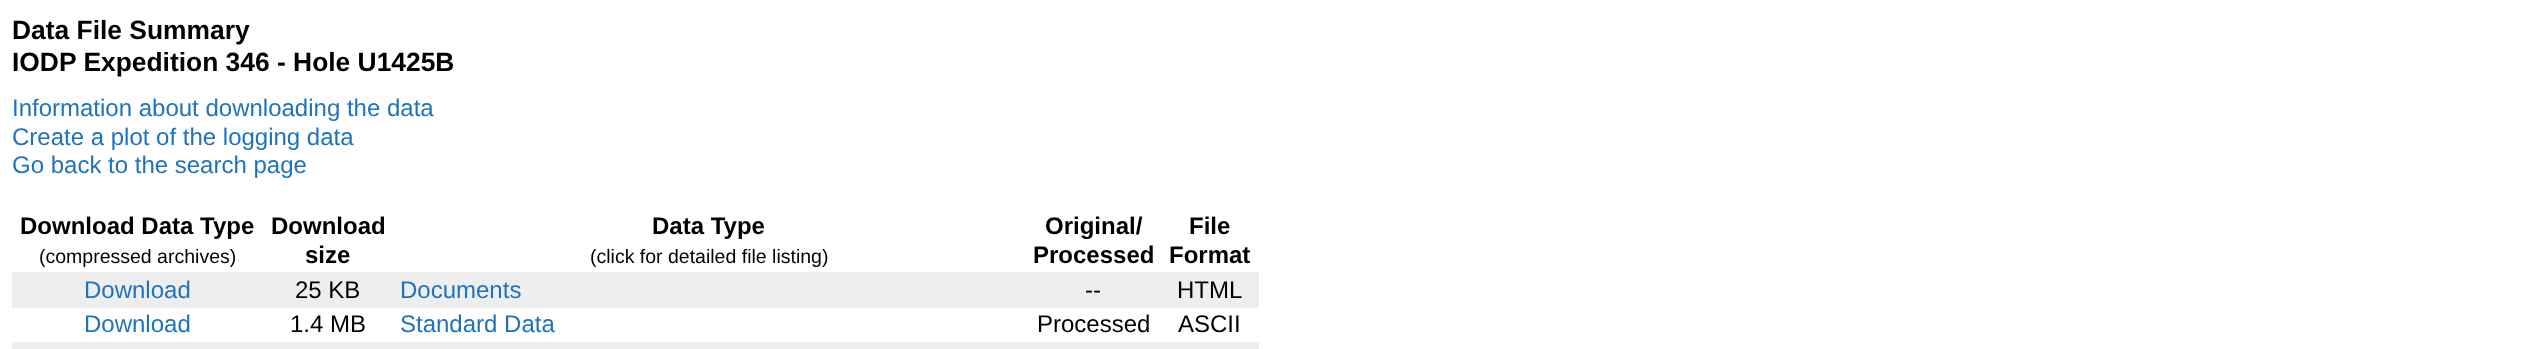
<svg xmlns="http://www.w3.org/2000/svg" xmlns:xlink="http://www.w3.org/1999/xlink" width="2530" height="349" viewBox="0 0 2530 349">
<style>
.cls-1{font:bold 26.4px Liberation Sans;fill:#000000}
.cls-2{font:24px Liberation Sans;fill:#1e73be}
.cls-3{font:bold 24px Liberation Sans;fill:#000000}
.cls-4{font:19.5px Liberation Sans;fill:#000000}
.cls-5{font:24px Liberation Sans;fill:#000000}
</style>
<rect width="100%" height="100%" fill="#ffffff"/>
<rect fill="#eeeeee" x="12" y="272" width="1247" height="36"/>
<rect fill="#eeeeee" x="12" y="342" width="1247" height="7"/>
<text class="cls-1"><tspan x="12" y="39">Data File Summary</tspan><tspan x="12" y="71">IODP Expedition 346 - Hole U1425B</tspan></text>
<text class="cls-2"><tspan x="12" y="116">Information about downloading the data</tspan><tspan x="12" y="145">Create a plot of the logging data</tspan><tspan x="12" y="173">Go back to the search page</tspan></text>
<text class="cls-3" x="20" y="234">Download Data Type</text>
<text class="cls-4" x="39" y="263">(compressed archives)</text>
<text class="cls-3" x="271" y="234">Download</text>
<text class="cls-3" x="305" y="263">size</text>
<text class="cls-3" x="652" y="234">Data Type</text>
<text class="cls-4" x="590" y="263">(click for detailed file listing)</text>
<text class="cls-3" x="1045" y="234">Original/</text>
<text class="cls-3" x="1033" y="263">Processed</text>
<text class="cls-3" x="1189" y="234">File</text>
<text class="cls-3" x="1169" y="263">Format</text>
<text class="cls-2" x="84" y="298">Download</text>
<text class="cls-5" x="295" y="298">25 KB</text>
<text class="cls-2" x="400" y="298">Documents</text>
<text class="cls-5" x="1085" y="298">--</text>
<text class="cls-5" x="1177" y="298">HTML</text>
<text class="cls-2" x="84" y="332">Download</text>
<text class="cls-5" x="290" y="332">1.4 MB</text>
<text class="cls-2" x="400" y="332">Standard Data</text>
<text class="cls-5" x="1037" y="332">Processed</text>
<text class="cls-5" x="1178" y="332">ASCII</text>
</svg>
